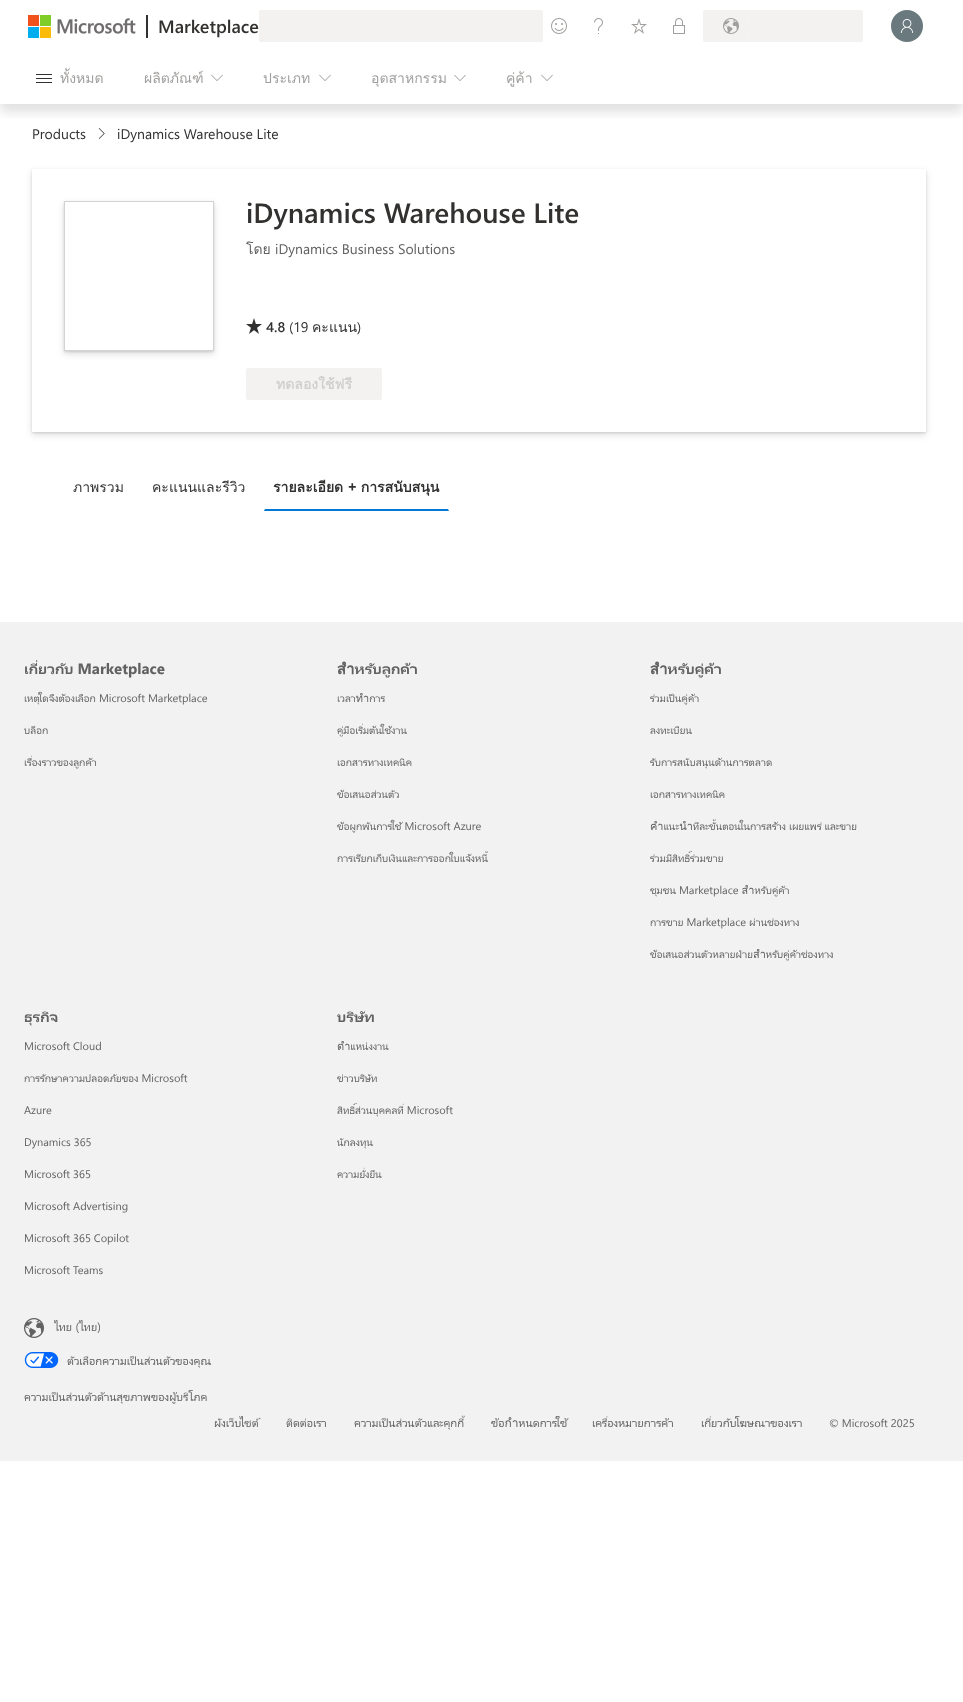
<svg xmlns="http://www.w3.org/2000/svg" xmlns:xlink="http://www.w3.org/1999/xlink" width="963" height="1702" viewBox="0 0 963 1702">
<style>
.cls-1{font:600 18px Segoe UI;fill:#323130}
.cls-2{font:14px Loma;fill:#a19f9d}
.cls-3{font:14px Segoe UI;fill:#323130}
.cls-4{font:600 28px Segoe UI;fill:#323130}
.cls-5{font:14px Loma;fill:#616161}
.cls-6{font:14px Segoe UI;fill:#616161}
.cls-7{font:600 14px Segoe UI;fill:#323130}
.cls-8{font:14px Loma;fill:#323130}
.cls-9{font:bold 14px Loma;fill:#d2d0ce}
.cls-10{font:bold 14px Loma;fill:#323130}
.cls-11{font:bold 15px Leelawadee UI;fill:#616161}
.cls-12{font:11px Leelawadee UI;fill:#616161}
.cls-13{font:12px Leelawadee UI;fill:#616161}
</style>
<defs>
<clipPath id="clip1"><rect x="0" y="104" width="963" height="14"/></clipPath>
<clipPath id="clip2"><path d="M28 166H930V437H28ZM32 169H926V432H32Z" clip-rule="evenodd"/></clipPath>
<clipPath id="clip3"><path d="M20 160H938V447H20ZM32 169H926V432H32Z" clip-rule="evenodd"/></clipPath>
<clipPath id="clip4"><path d="M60 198H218V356H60ZM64 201H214V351H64Z" clip-rule="evenodd"/></clipPath>
<clipPath id="clip5"><path d="M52 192H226V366H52ZM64 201H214V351H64Z" clip-rule="evenodd"/></clipPath>
</defs>
<rect width="100%" height="100%" fill="#ffffff"/>
<image xlink:href="image9.png" x="98" y="128" width="7" height="11"/>
<g clip-path="url(#clip1)">
<rect fill="#000000" fill-opacity="0.12" filter="blur(6px)" x="0" y="8" width="963" height="104"/>
</g>
<image xlink:href="image0.png" x="28" y="15" width="108" height="23"/>
<rect fill="#323130" x="146" y="15" width="2" height="23"/>
<rect fill="#f3f2f1" x="259" y="10" width="284" height="32"/>
<rect fill="#fcfbfb" x="259" y="10" width="1" height="1"/>
<rect fill="#fcfbfb" x="542" y="10" width="1" height="1"/>
<rect fill="#fcfbfb" x="259" y="41" width="1" height="1"/>
<rect fill="#fcfbfb" x="542" y="41" width="1" height="1"/>
<image xlink:href="image1.png" x="551" y="18" width="16" height="16"/>
<image xlink:href="image2.png" x="594" y="18" width="9" height="16"/>
<image xlink:href="image3.png" x="631" y="18" width="16" height="16"/>
<image xlink:href="image4.png" x="673" y="18" width="12" height="16"/>
<rect fill="#f3f2f1" x="703" y="10" width="160" height="32" rx="2"/>
<image xlink:href="image5.png" x="723" y="18" width="16" height="16"/>
<rect fill="#fcfbfb" x="747" y="16" width="1" height="1"/>
<rect fill="#fcfbfb" x="846" y="16" width="1" height="1"/>
<rect fill="#fcfbfb" x="747" y="35" width="1" height="1"/>
<rect fill="#fcfbfb" x="846" y="35" width="1" height="1"/>
<circle fill="#69797e" cx="907" cy="26" r="16"/>
<image xlink:href="image6.png" x="900" y="19" width="14" height="14"/>
<image xlink:href="image7.png" x="36" y="74" width="16" height="9"/>
<image xlink:href="image8.png" x="211" y="74" width="12" height="7"/>
<image xlink:href="image8.png" x="319" y="74" width="12" height="7"/>
<image xlink:href="image8.png" x="454" y="74" width="12" height="7"/>
<image xlink:href="image8.png" x="541" y="74" width="12" height="7"/>
<g clip-path="url(#clip2)">
<rect fill="#000000" fill-opacity="0.11" filter="blur(1px)" x="32" y="170" width="894" height="263"/>
</g>
<g clip-path="url(#clip3)">
<rect fill="#000000" fill-opacity="0.13" filter="blur(3.5px)" x="32" y="172" width="894" height="263"/>
</g>
<g clip-path="url(#clip4)">
<rect fill="#000000" fill-opacity="0.11" filter="blur(1px)" x="64" y="202" width="150" height="150"/>
</g>
<g clip-path="url(#clip5)">
<rect fill="#000000" fill-opacity="0.13" filter="blur(3.5px)" x="64" y="204" width="150" height="150"/>
</g>
<rect fill="none" stroke="#d3d3d3" x="64.5" y="201.5" width="149" height="149"/>
<image xlink:href="image10.png" x="246" y="318" width="16" height="16"/>
<rect fill="#f3f2f1" stroke="#f3f2f1" x="246.5" y="368.5" width="135" height="31" rx="1.5"/>
<path fill="#0078d4" d="M449 511H264L265 509H448Z"/>
<rect fill="#f2f2f2" x="0" y="622" width="963" height="839"/>
<image xlink:href="image11.png" x="24" y="1318" width="20" height="20"/>
<image xlink:href="image12.png" x="24" y="1352" width="35" height="16"/>
<text class="cls-1" x="158" y="33">Marketplace</text>
<text class="cls-2" x="60" y="83">ทั้งหมด</text>
<text class="cls-2" x="144" y="83">ผลิตภัณฑ์</text>
<text class="cls-2" x="263" y="83">ประเภท</text>
<text class="cls-2" x="371" y="83">อุตสาหกรรม</text>
<text class="cls-2" x="506" y="83">คู่ค้า</text>
<text class="cls-3" x="32" y="139">Products</text>
<text class="cls-3" x="117" y="139">iDynamics Warehouse Lite</text>
<text class="cls-4" x="246" y="223">iDynamics Warehouse Lite</text>
<text class="cls-5" x="246" y="254">โดย</text>
<text class="cls-6" x="275" y="254">iDynamics Business Solutions</text>
<text class="cls-7" x="266" y="332">4.8</text>
<text class="cls-3" x="289" y="332">(19</text>
<text class="cls-8" x="312" y="332">คะแนน</text>
<text class="cls-3" x="357" y="332">)</text>
<text class="cls-9" x="276" y="389">ทดลองใช้ฟรี</text>
<text class="cls-8" x="73" y="492">ภาพรวม</text>
<text class="cls-8" x="152" y="492">คะแนนและรีวิว</text>
<text class="cls-10" x="273" y="492">รายละเอียด + การสนับสนุน</text>
<text class="cls-11" x="24" y="674">เกี่ยวกับ Marketplace</text>
<text class="cls-12" x="24" y="702">เหตุใดจึงต้องเลือก Microsoft Marketplace</text>
<text class="cls-12" x="24" y="734">บล็อก</text>
<text class="cls-12" x="24" y="766">เรื่องราวของลูกค้า</text>
<text class="cls-11" x="337" y="674">สำหรับลูกค้า</text>
<text class="cls-12" x="337" y="702">เวลาทำการ</text>
<text class="cls-12" x="337" y="734">คู่มือเริ่มต้นใช้งาน</text>
<text class="cls-12" x="337" y="766">เอกสารทางเทคนิค</text>
<text class="cls-12" x="337" y="798">ข้อเสนอส่วนตัว</text>
<text class="cls-12" x="337" y="830">ข้อผูกพันการใช้ Microsoft Azure</text>
<text class="cls-12" x="337" y="862">การเรียกเก็บเงินและการออกใบแจ้งหนี้</text>
<text class="cls-11" x="650" y="674">สำหรับคู่ค้า</text>
<text class="cls-12" x="650" y="702">ร่วมเป็นคู่ค้า</text>
<text class="cls-12" x="650" y="734">ลงทะเบียน</text>
<text class="cls-12" x="650" y="766">รับการสนับสนุนด้านการตลาด</text>
<text class="cls-12" x="650" y="798">เอกสารทางเทคนิค</text>
<text class="cls-12" x="650" y="830">คำแนะนำทีละขั้นตอนในการสร้าง เผยแพร่ และขาย</text>
<text class="cls-12" x="650" y="862">ร่วมมีสิทธิ์ร่วมขาย</text>
<text class="cls-12" x="650" y="894">ชุมชน Marketplace สำหรับคู่ค้า</text>
<text class="cls-12" x="650" y="926">การขาย Marketplace ผ่านช่องทาง</text>
<text class="cls-12" x="650" y="958">ข้อเสนอส่วนตัวหลายฝ่ายสำหรับคู่ค้าช่องทาง</text>
<text class="cls-11" x="24" y="1022">ธุรกิจ</text>
<text class="cls-12" x="24" y="1050">Microsoft Cloud</text>
<text class="cls-12" x="24" y="1082">การรักษาความปลอดภัยของ Microsoft</text>
<text class="cls-12" x="24" y="1114">Azure</text>
<text class="cls-12" x="24" y="1146">Dynamics 365</text>
<text class="cls-12" x="24" y="1178">Microsoft 365</text>
<text class="cls-12" x="24" y="1210">Microsoft Advertising</text>
<text class="cls-12" x="24" y="1242">Microsoft 365 Copilot</text>
<text class="cls-12" x="24" y="1274">Microsoft Teams</text>
<text class="cls-11" x="337" y="1022">บริษัท</text>
<text class="cls-12" x="337" y="1050">ตำแหน่งงาน</text>
<text class="cls-12" x="337" y="1082">ข่าวบริษัท</text>
<text class="cls-12" x="337" y="1114">สิทธิ์ส่วนบุคคลที่ Microsoft</text>
<text class="cls-12" x="337" y="1146">นักลงทุน</text>
<text class="cls-12" x="337" y="1178">ความยั่งยืน</text>
<text class="cls-13" x="54" y="1331">ไทย (ไทย)</text>
<text class="cls-13" x="67" y="1365">ตัวเลือกความเป็นส่วนตัวของคุณ</text>
<text class="cls-13" x="24" y="1401">ความเป็นส่วนตัวด้านสุขภาพของผู้บริโภค</text>
<text class="cls-13" x="214" y="1427">ผังเว็บไซต์</text>
<text class="cls-13" x="286" y="1427">ติดต่อเรา</text>
<text class="cls-13" x="354" y="1427">ความเป็นส่วนตัวและคุกกี้</text>
<text class="cls-13" x="491" y="1427">ข้อกำหนดการใช้</text>
<text class="cls-13" x="592" y="1427">เครื่องหมายการค้า</text>
<text class="cls-13" x="701" y="1427">เกี่ยวกับโฆษณาของเรา</text>
<text class="cls-12" x="829" y="1427">© Microsoft 2025</text>
</svg>
